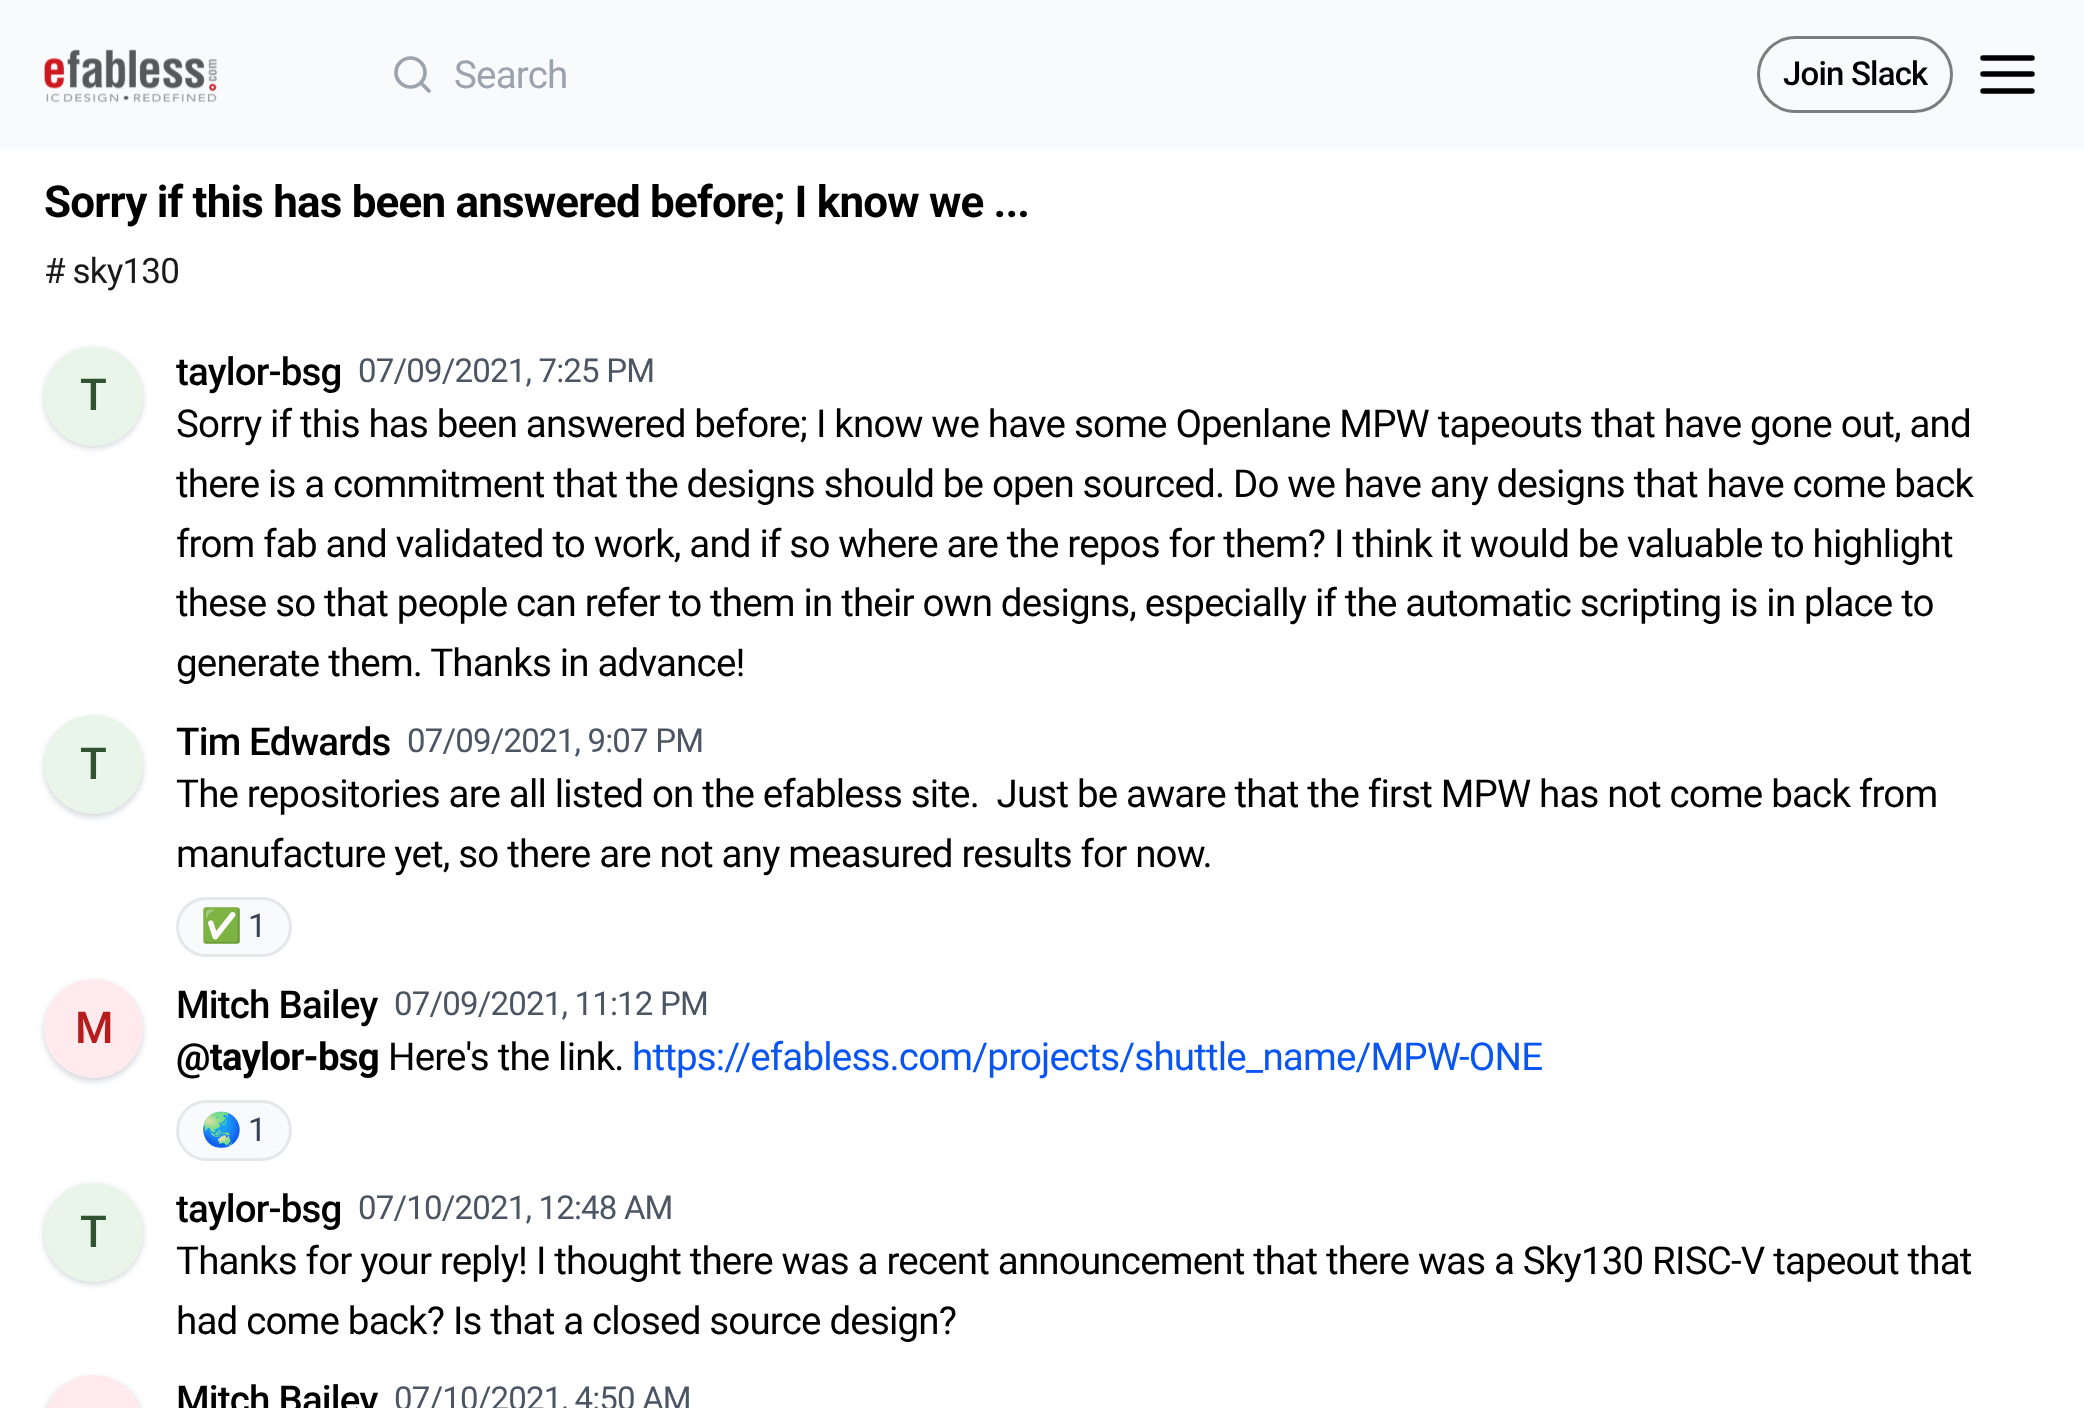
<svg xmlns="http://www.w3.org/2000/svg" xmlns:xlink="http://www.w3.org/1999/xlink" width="2084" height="1408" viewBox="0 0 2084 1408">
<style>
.cls-1{font:38.5px Roboto;letter-spacing:-0.82px;fill:#9ca3af}
.cls-2{font:500 33px Roboto;letter-spacing:-0.82px;fill:#000000}
.cls-3{font:bold 44px Roboto;letter-spacing:-0.82px;fill:#000000}
.cls-4{font:35px Roboto;letter-spacing:-0.82px;fill:#1a1a1a}
.cls-5{font:500 44px Roboto;letter-spacing:-0.82px;fill:#305332}
.cls-6{font:500 38.5px Roboto;letter-spacing:-0.82px;fill:#000000}
.cls-7{font:33px Roboto;letter-spacing:-0.82px;fill:#4b5563}
.cls-8{font:38.5px Roboto;letter-spacing:-0.82px;fill:#000000}
.cls-9{font:33px Noto Color Emoji;letter-spacing:-0.82px;fill:#374151}
.cls-10{font:33px Roboto;letter-spacing:-0.82px;fill:#374151}
.cls-11{font:500 44px Roboto;letter-spacing:-0.82px;fill:#b71c1c}
.cls-12{font:bold 38.5px Roboto;letter-spacing:-0.82px;fill:#000000}
.cls-13{font:38.5px Roboto;letter-spacing:-0.82px;fill:#0855f4}
</style>
<rect width="100%" height="100%" fill="#ffffff"/>
<rect fill="#f8fafc" x="0" y="0" width="2084" height="149"/>
<image xlink:href="image0.png" x="44" y="49" width="174" height="54"/>
<circle fill="none" stroke="#9ca3af" stroke-width="3.7" cx="410.5" cy="72.5" r="14.5"/>
<path fill="none" stroke="#9ca3af" stroke-width="3.7" stroke-linecap="round" stroke-linejoin="round" d="M429 91L421 83"/>
<rect fill="none" stroke="#7c7d7e" stroke-width="3" x="1758.5" y="37.5" width="193" height="74" rx="37"/>
<path fill="none" stroke="#000000" stroke-width="5.5" stroke-linecap="round" stroke-linejoin="round" d="M1983 74H2032M1983 58H2032M1983 91H2032"/>
<rect fill="#d1d5db" filter="blur(3px)" x="44" y="349" width="99" height="99" rx="49.5"/>
<circle fill="#e9f5e9" cx="93.5" cy="396.5" r="49.5"/>
<rect fill="#d1d5db" filter="blur(3px)" x="44" y="718" width="99" height="99" rx="49.5"/>
<circle fill="#e9f5e9" cx="93.5" cy="764.5" r="49.5"/>
<rect fill="#f9fafb" stroke="#e5e7eb" stroke-width="3" x="177.5" y="898.5" width="113" height="57" rx="28.5"/>
<rect fill="#d1d5db" filter="blur(3px)" x="44" y="982" width="99" height="99" rx="49.5"/>
<circle fill="#ffebee" cx="93.5" cy="1028.5" r="49.5"/>
<rect fill="#f9fafb" stroke="#e5e7eb" stroke-width="3" x="177.5" y="1101.5" width="113" height="58" rx="29"/>
<rect fill="#d1d5db" filter="blur(3px)" x="44" y="1185" width="99" height="99" rx="49.5"/>
<circle fill="#e9f5e9" cx="93.5" cy="1232.5" r="49.5"/>
<rect fill="#d1d5db" filter="blur(3px)" x="44" y="1378" width="99" height="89" rx="49.5"/>
<path fill="#ffebee" d="M93.5 1375C121 1375 143 1397 143 1424.5V1408H44V1424.5C44 1397 66 1375 93.5 1375Z"/>
<text class="cls-1" x="454" y="88">Search</text>
<text class="cls-2" x="1783" y="85">Join Slack</text>
<text class="cls-3" x="44" y="217">Sorry if this has been answered before; I know we ...</text>
<text class="cls-4" x="44" y="283"># sky130</text>
<text class="cls-5" x="80" y="410">T</text>
<text class="cls-6" x="176" y="385">taylor-bsg</text>
<text class="cls-7" x="358" y="382">07/09/2021, 7:25 PM</text>
<text class="cls-8"><tspan x="176" y="437">Sorry if this has been answered before; I know we have some Openlane MPW tapeouts that have gone out, and</tspan><tspan x="176" y="497">there is a commitment that the designs should be open sourced. Do we have any designs that have come back</tspan><tspan x="176" y="557">from fab and validated to work, and if so where are the repos for them? I think it would be valuable to highlight</tspan><tspan x="176" y="616">these so that people can refer to them in their own designs, especially if the automatic scripting is in place to</tspan><tspan x="176" y="676">generate them. Thanks in advance!</tspan></text>
<text class="cls-5" x="80" y="779">T</text>
<text class="cls-6" x="176" y="755">Tim Edwards</text>
<text class="cls-7" x="407" y="752">07/09/2021, 9:07 PM</text>
<text class="cls-8" xml:space="preserve"><tspan x="176" y="807">The repositories are all listed on the efabless site.  Just be aware that the first MPW has not come back from</tspan><tspan x="176" y="867">manufacture yet, so there are not any measured results for now.</tspan></text>
<text class="cls-9" x="201" y="937">✅</text>
<text class="cls-10" x="248" y="937">1</text>
<text class="cls-11" x="75" y="1043">M</text>
<text class="cls-6" x="176" y="1018">Mitch Bailey</text>
<text class="cls-7" x="394" y="1015">07/09/2021, 11:12 PM</text>
<text class="cls-12" x="176" y="1070">@taylor-bsg</text>
<text class="cls-8" x="388" y="1070">Here's the link.</text>
<text class="cls-13" x="632" y="1070">https://efabless.com/projects/shuttle_name/MPW-ONE</text>
<text class="cls-9" x="201" y="1141">🌏</text>
<text class="cls-10" x="248" y="1141">1</text>
<text class="cls-5" x="80" y="1247">T</text>
<text class="cls-6" x="176" y="1222">taylor-bsg</text>
<text class="cls-7" x="358" y="1219">07/10/2021, 12:48 AM</text>
<text class="cls-8"><tspan x="176" y="1274">Thanks for your reply! I thought there was a recent announcement that there was a Sky130 RISC-V tapeout that</tspan><tspan x="176" y="1334">had come back? Is that a closed source design?</tspan></text>
<text class="cls-6" x="176" y="1413">Mitch Bailey</text>
<text class="cls-7" x="394" y="1410">07/10/2021, 4:50 AM</text>
</svg>
